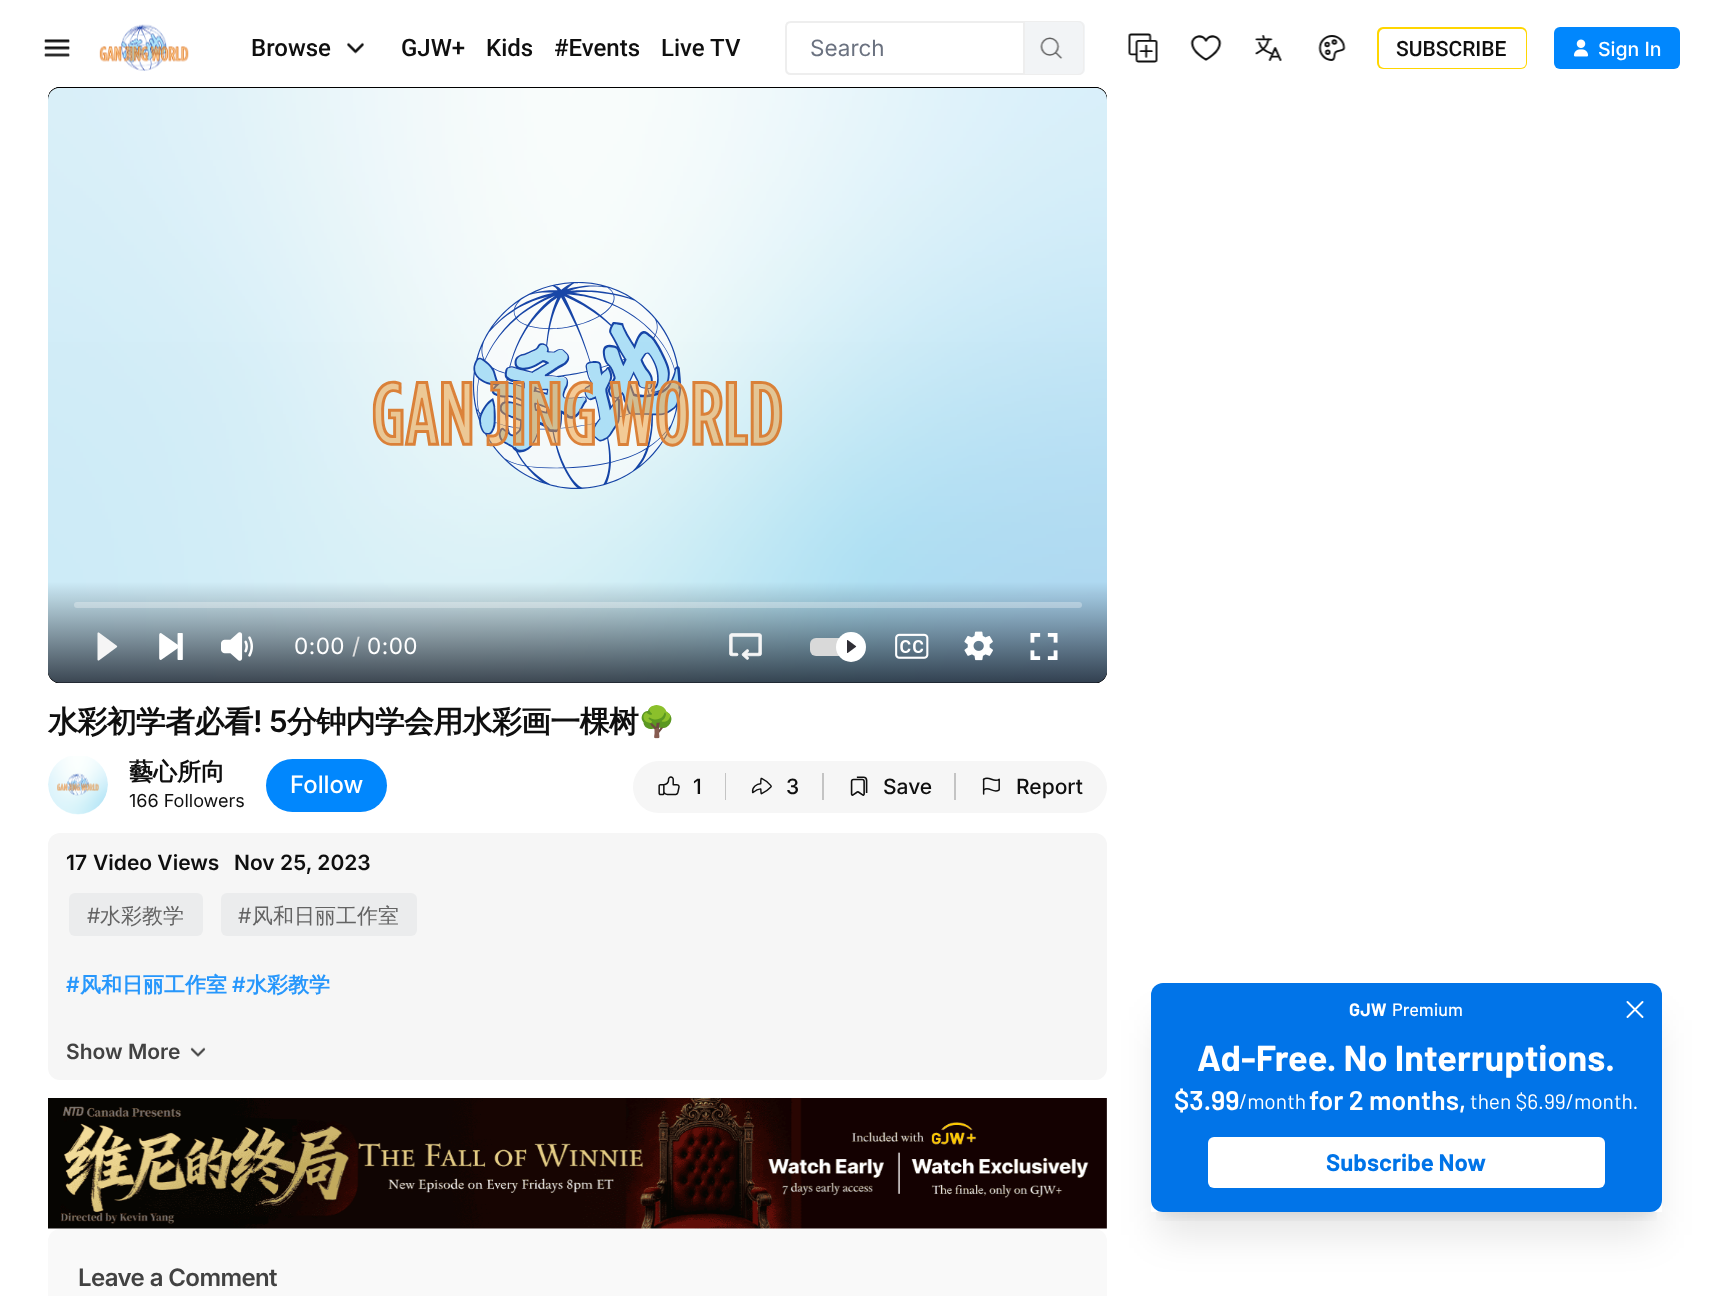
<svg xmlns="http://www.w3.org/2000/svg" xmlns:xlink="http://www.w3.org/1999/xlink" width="1715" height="1296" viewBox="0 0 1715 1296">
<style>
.cls-1{font:500 24px Roboto;fill:#0f0f0f}
.cls-2{font:22.5px Inter;fill:#6b7280}
.cls-3{font:500 21px Roboto;fill:#0f0f0f}
.cls-4{font:500 19.5px 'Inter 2';fill:#ffffff}
.cls-5{font:22.5px Inter;letter-spacing:0.5px;fill:#ffffff}
.cls-6{font:22.5px Inter;fill:#e0e0e0}
.cls-7{font:bold 30px WenQuanYi Zen Hei;letter-spacing:-0.75px;fill:#0f0f0f}
.cls-8{font:600 30px Inter;letter-spacing:-0.75px;fill:#0f0f0f}
.cls-9{font:30px Noto Color Emoji;letter-spacing:-0.75px;fill:#0f0f0f}
.cls-10{font:bold 24px WenQuanYi Zen Hei;fill:#0f0f0f}
.cls-11{font:18px Inter;fill:#0f0f0f}
.cls-12{font:500 24px Inter;fill:#ffffff}
.cls-13{font:500 21px 'Inter 2';fill:#0f0f0f}
.cls-14{font:600 21px Inter;fill:#0f0f0f}
.cls-15{font:21px Inter;fill:#636363}
.cls-16{font:500 21px WenQuanYi Zen Hei;fill:#636363}
.cls-17{font:600 21px Inter;fill:#2797fc}
.cls-18{font:bold 21px WenQuanYi Zen Hei;fill:#2797fc}
.cls-19{font:600 21px Inter;fill:#424242}
.cls-20{font:600 24px Inter;letter-spacing:-0.6px;fill:#424242}
.cls-21{font:bold 18px Barlow;fill:#ffffff}
.cls-22{font:500 18px Barlow;fill:#ffffff}
.cls-23{font:bold 36px Barlow;fill:#ffffff}
.cls-24{font:600 27px Barlow;fill:#ffffff}
.cls-25{font:21px Barlow;fill:#ffffff}
.cls-26{font:bold 24px Barlow;fill:#0074e8}
</style>
<defs>
<linearGradient id="g1" gradientUnits="userSpaceOnUse" x1="1404" y1="96" x2="1500" y2="-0.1"><stop offset="0.01" stop-color="#ff9900"/><stop offset="0.01" stop-color="#ffd600"/><stop offset="1" stop-color="#ffd601"/></linearGradient>
<linearGradient id="g2" gradientUnits="userSpaceOnUse" x1="578" y1="683" x2="578" y2="87"><stop offset="0" stop-color="#010511" stop-opacity="0.72"/><stop offset="0.17" stop-color="#010511" stop-opacity="0"/></linearGradient>
<clipPath id="clip1"><rect x="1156" y="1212" width="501" height="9"/></clipPath>
<clipPath id="clip2"><path d="M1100 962H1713V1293H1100ZM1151 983H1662V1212H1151Z" clip-rule="evenodd"/></clipPath>
</defs>
<rect width="100%" height="100%" fill="#ffffff"/>
<image xlink:href="image0.png" x="44" y="39" width="26" height="18"/>
<image xlink:href="image1.png" x="99" y="24" width="90" height="47"/>
<image xlink:href="image2.png" x="347" y="42" width="17" height="12"/>
<path fill="#f2f4f6" d="M1025 21H1079C1082.5 21 1085 23.5 1085 27V69C1085 72.5 1082.5 75 1079 75H1025Z"/>
<path fill="#eeeeee" fill-rule="evenodd" d="M1024 21H1078C1082 21 1084 24 1084 27V69C1084 72 1082 75 1078 75H1024ZM1024 22H1078C1081 22 1083 25 1083 27V69C1083 71 1081 74 1078 74H1024Z"/>
<path fill="#ffffff" stroke="#eeeeee" stroke-width="2" d="M791 22H1024V74H791C788 74 786 72 786 69V27C786 24 788 22 791 22Z"/>
<image xlink:href="image3.png" x="1040" y="37" width="23" height="22"/>
<image xlink:href="image4.png" x="1128" y="33" width="30" height="30"/>
<image xlink:href="image5.png" x="1190" y="35" width="32" height="26"/>
<image xlink:href="image6.png" x="1255" y="35" width="27" height="26"/>
<image xlink:href="image7.png" x="1318" y="35" width="28" height="26"/>
<rect fill="url(#g1)" x="1377" y="27" width="150" height="42" rx="6"/>
<rect fill="#ffffff" x="1379" y="29" width="147" height="39" rx="5"/>
<rect fill="#0187fd" x="1554" y="27" width="126" height="42" rx="6"/>
<image xlink:href="image8.png" x="1573" y="39" width="15" height="18"/>
<rect fill="#000000" x="48" y="87" width="1059" height="596" rx="12"/>
<rect fill="#000000" fill-opacity="0.99" x="48" y="87" width="1059" height="596" rx="12"/>
<rect fill="#000000" fill-opacity="0.99" x="48" y="87" width="1059" height="596" rx="12"/>
<image xlink:href="image9.png" x="48" y="88" width="1059" height="595"/>
<path fill="url(#g2)" d="M48 87H1107V671C1107 677.5 1101.5 683 1095 683H60C53.5 683 48 677.5 48 671Z"/>
<rect fill="#ffffff" fill-opacity="0.3" x="74" y="602" width="1008" height="6" rx="3"/>
<image xlink:href="image10.png" x="97" y="632" width="21" height="29"/>
<image xlink:href="image11.png" x="159" y="633" width="24" height="27"/>
<image xlink:href="image12.png" x="221" y="632" width="32" height="29"/>
<image xlink:href="image13.png" x="729" y="633" width="33" height="27"/>
<rect fill="#d9d9d9" x="810" y="638" width="41" height="18" rx="6"/>
<circle fill="#ffffff" cx="851" cy="647" r="15"/>
<image xlink:href="image14.png" x="847" y="640" width="10" height="13"/>
<image xlink:href="image15.png" x="895" y="633" width="34" height="26"/>
<image xlink:href="image16.png" x="964" y="631" width="29" height="30"/>
<image xlink:href="image17.png" x="1030" y="633" width="28" height="27"/>
<image xlink:href="image18.png" x="48" y="756" width="60" height="59"/>
<rect fill="#0187fd" x="266" y="759" width="121" height="53" rx="26.5"/>
<path fill="#f6f6f6" d="M659 761H726V813H659C644.5 813 633 801.5 633 787C633 772.5 644.5 761 659 761Z"/>
<image xlink:href="image19.png" x="658" y="776" width="22" height="20"/>
<rect fill="#c4c4c4" x="725" y="773" width="1" height="27"/>
<rect fill="#f6f6f6" x="726" y="761" width="230" height="52"/>
<image xlink:href="image20.png" x="751" y="777" width="21" height="18"/>
<rect fill="#c4c4c4" x="822" y="773" width="2" height="27"/>
<image xlink:href="image21.png" x="850" y="776" width="18" height="20"/>
<rect fill="#c4c4c4" x="954" y="773" width="2" height="27"/>
<path fill="#f6f6f6" d="M956 761H1081C1095.5 761 1107 772.5 1107 787C1107 801.5 1095.5 813 1081 813H956Z"/>
<image xlink:href="image22.png" x="982" y="777" width="18" height="18"/>
<rect fill="#f6f6f6" x="48" y="833" width="1059" height="247" rx="12"/>
<rect fill="#ebeced" x="69" y="893" width="134" height="43" rx="6"/>
<rect fill="#ebeced" x="221" y="893" width="196" height="43" rx="6"/>
<image xlink:href="image23.png" x="190" y="1047" width="16" height="10"/>
<image xlink:href="image24.png" x="48" y="1098" width="1059" height="131"/>
<rect fill="#f9f9f9" x="48" y="1229" width="1059" height="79" rx="12"/>
<rect fill="#0174e8" x="1151" y="983" width="511" height="229" rx="12"/>
<g clip-path="url(#clip1)">
<rect fill="#000000" fill-opacity="0.1" filter="blur(7.5px)" x="1160" y="1004" width="493" height="211"/>
</g>
<g clip-path="url(#clip2)">
<rect fill="#000000" fill-opacity="0.1" filter="blur(19px)" x="1158" y="1020" width="497" height="215"/>
</g>
<path fill="none" stroke="#ffffff" stroke-width="1.9" stroke-linecap="round" stroke-linejoin="round" d="M1627.5 1017L1642.5 1002M1627.5 1002L1642.5 1017"/>
<rect fill="#ffffff" x="1208" y="1137" width="397" height="51" rx="6"/>
<text class="cls-1" x="251" y="56">Browse</text>
<text class="cls-1" x="401" y="56">GJW+</text>
<text class="cls-1" x="486" y="56">Kids</text>
<text class="cls-1" x="554" y="56">#Events</text>
<text class="cls-1" x="661" y="56">Live TV</text>
<text class="cls-2" x="810" y="56">Search</text>
<text class="cls-3" x="1396" y="56">SUBSCRIBE</text>
<text class="cls-4" x="1598" y="56">Sign In</text>
<text class="cls-5" x="294" y="654">0:00</text>
<text class="cls-6" x="352" y="654">/</text>
<text class="cls-5" x="367" y="654">0:00</text>
<text class="cls-7" x="48" y="732">水彩初学者必看</text>
<text class="cls-8" x="253" y="732">! 5</text>
<text class="cls-7" x="287" y="732">分钟内学会用水彩画一棵树</text>
<text class="cls-9" x="638" y="732">🌳</text>
<text class="cls-10" x="129" y="780">藝心所向</text>
<text class="cls-11" x="129" y="807">166 Followers</text>
<text class="cls-12" x="290" y="793">Follow</text>
<text class="cls-13" x="693" y="794">1</text>
<text class="cls-13" x="786" y="794">3</text>
<text class="cls-13" x="883" y="794">Save</text>
<text class="cls-13" x="1016" y="794">Report</text>
<text class="cls-14" x="66" y="870">17</text>
<text class="cls-14" x="93" y="870">Video Views</text>
<text class="cls-14" x="234" y="870">Nov 25, 2023</text>
<text class="cls-15" x="87" y="923">#</text>
<text class="cls-16" x="100" y="923">水彩教学</text>
<text class="cls-15" x="238" y="923">#</text>
<text class="cls-16" x="252" y="923">风和日丽工作室</text>
<text class="cls-17" x="66" y="992">#</text>
<text class="cls-18" x="80" y="992">风和日丽工作室</text>
<text class="cls-17" x="232" y="992">#</text>
<text class="cls-18" x="246" y="992">水彩教学</text>
<text class="cls-19" x="66" y="1059">Show More</text>
<text class="cls-20" x="78" y="1286">Leave a Comment</text>
<text class="cls-21" x="1349" y="1016">GJW</text>
<text class="cls-22" x="1392" y="1016">Premium</text>
<text class="cls-23" x="1197" y="1071">Ad-Free. No Interruptions.</text>
<text class="cls-24" x="1174" y="1110">$3.99</text>
<text class="cls-25" x="1239" y="1109">/month</text>
<text class="cls-24" x="1309" y="1110">for 2 months,</text>
<text class="cls-25" x="1470" y="1109">then $6.99/month.</text>
<text class="cls-26" x="1326" y="1171">Subscribe Now</text>
</svg>
